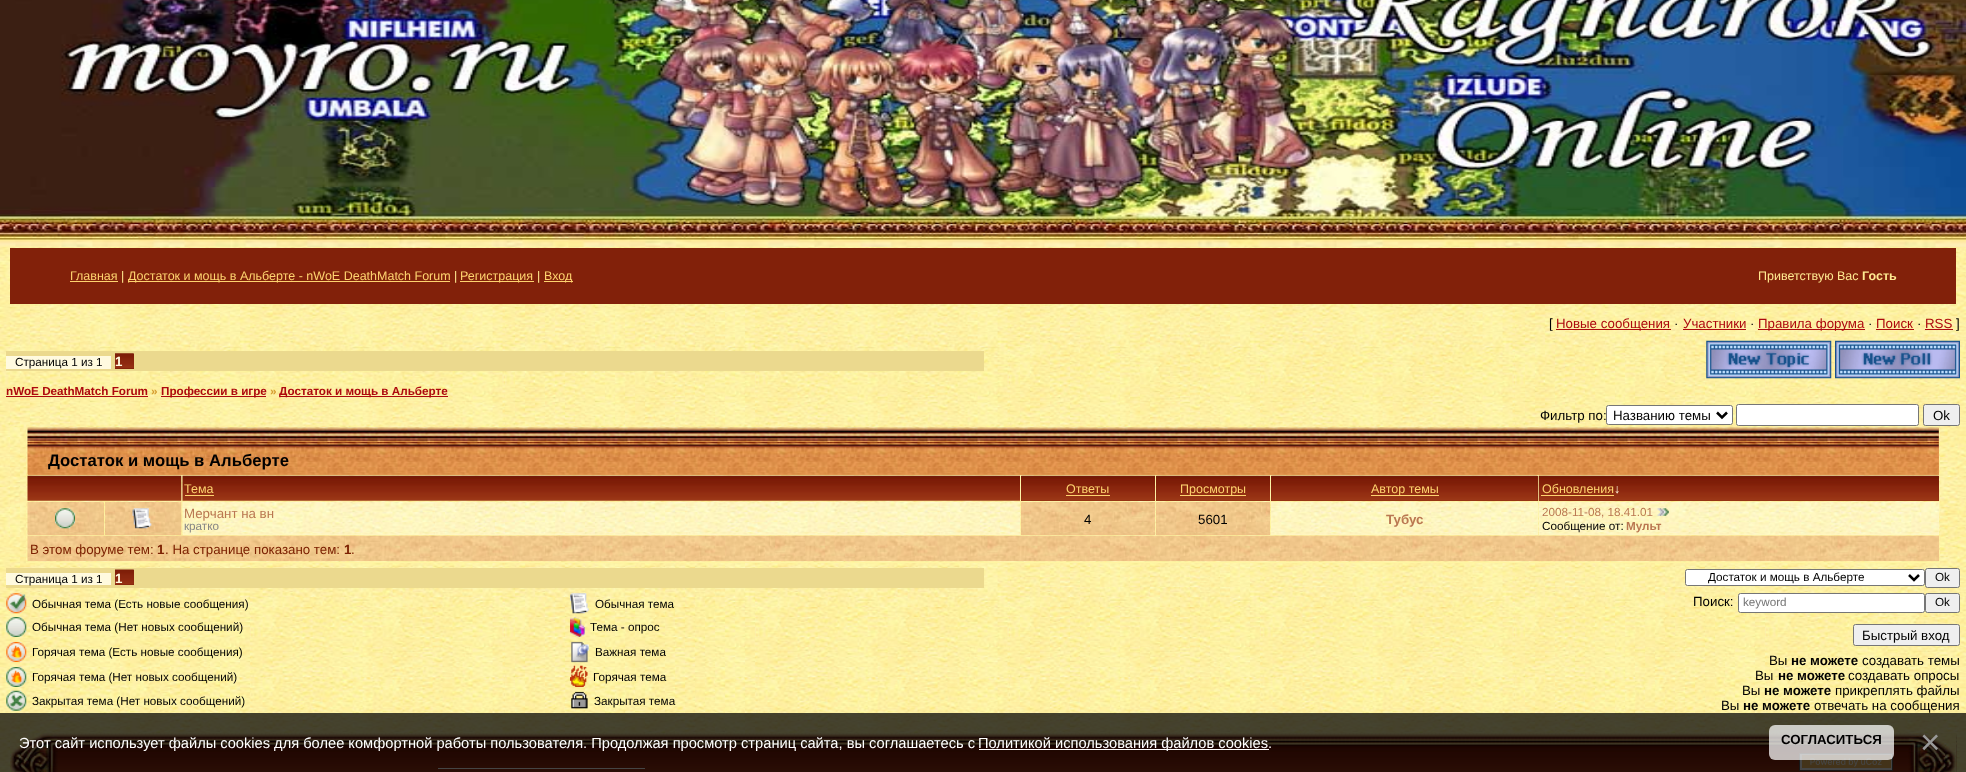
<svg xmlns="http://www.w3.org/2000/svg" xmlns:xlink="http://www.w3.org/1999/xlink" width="1966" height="772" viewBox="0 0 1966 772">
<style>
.cls-1{font:12.5px Liberation Sans;fill:#fed36f}
.cls-2{font:12.5px Liberation Sans;fill:#ffe991}
.cls-3{font:bold 12.5px Liberation Sans;fill:#ffe991}
.cls-4{font:13.3px Liberation Sans;fill:#000000}
.cls-5{font:13.3px Liberation Sans;fill:#ad090e}
.cls-6{font:11.7px Liberation Sans;fill:#000000}
.cls-7{font:bold 13.3px Liberation Sans;fill:#fffadf}
.cls-8{font:bold 11.7px Liberation Sans;fill:#ad090e}
.cls-9{font:bold 11.7px Liberation Sans;fill:#d69d30}
.cls-10{font:bold 16.7px Liberation Sans;fill:#000000}
.cls-11{font:12.5px Liberation Sans;fill:#fffadf}
.cls-12{font:13.3px Liberation Sans;fill:#ba7751}
.cls-13{font:11.7px Liberation Sans;fill:#858585}
.cls-14{font:bold 13.3px Liberation Sans;fill:#ba7751}
.cls-15{font:11.7px Liberation Sans;fill:#ba7751}
.cls-16{font:bold 11.7px Liberation Sans;fill:#ba7751}
.cls-17{font:13.3px Liberation Sans;fill:#7c2102}
.cls-18{font:bold 13.3px Liberation Sans;fill:#7c2102}
.cls-19{font:11.7px Liberation Sans;fill:#757575}
.cls-20{font:bold 13.3px Liberation Sans;fill:#000000}
.cls-21{font:14.67px Liberation Sans;fill:#ffffff}
.cls-22{font:bold 13.25px Liberation Sans;fill:#000000}
.cls-23{font:35px Liberation Sans;fill:#999999}
</style>
<rect width="100%" height="100%" fill="#ffffff"/>
<image xlink:href="image0.png" x="0" y="247" width="1966" height="525"/>
<image xlink:href="image1.png" x="0" y="0" width="1966" height="247"/>
<rect fill="#82210a" x="10" y="248" width="1946" height="56"/>
<rect fill="#fed36f" x="70" y="281" width="48" height="1"/>
<rect fill="#fed36f" x="128" y="281" width="322" height="1"/>
<rect fill="#fed36f" x="460" y="281" width="74" height="1"/>
<rect fill="#fed36f" x="544" y="281" width="29" height="1"/>
<rect fill="#ad090e" x="1556" y="329" width="115" height="1"/>
<rect fill="#ad090e" x="1683" y="329" width="63" height="1"/>
<rect fill="#ad090e" x="1758" y="329" width="107" height="1"/>
<rect fill="#ad090e" x="1876" y="329" width="38" height="1"/>
<rect fill="#ad090e" x="1925" y="329" width="28" height="1"/>
<rect fill="#ebd98e" x="6" y="351" width="978" height="20"/>
<rect fill="#fffadf" x="6" y="356" width="105" height="13"/>
<rect fill="#82210a" x="115" y="354" width="19" height="15"/>
<image xlink:href="image2.png" x="115" y="353" width="19" height="16"/>
<image xlink:href="image3.png" x="1706" y="340" width="126" height="39"/>
<image xlink:href="image4.png" x="1835" y="340" width="125" height="39"/>
<rect fill="#ad090e" x="6" y="396" width="142" height="1"/>
<rect fill="#ad090e" x="161" y="396" width="105" height="1"/>
<rect fill="#ad090e" x="280" y="396" width="168" height="1"/>
<rect fill="#ffffff" stroke="#767676" x="1606.5" y="405.5" width="126" height="19" rx="2"/>
<path fill="none" stroke="#000000" stroke-width="2.5" d="M1717 412.5L1722 417.5L1727 412.5"/>
<rect fill="#fff5a2" x="26" y="426" width="1914" height="137"/>
<image xlink:href="image5.png" x="26" y="425" width="1914" height="137"/>
<rect fill="#ffffff" stroke="#767676" x="1736.5" y="404.5" width="182" height="21" rx="2"/>
<rect fill="#efefef" stroke="#767676" x="1923.5" y="404.5" width="36" height="21" rx="2"/>
<rect fill="#e59b51" x="28" y="428" width="1911" height="47"/>
<image xlink:href="image6.png" x="27" y="427" width="1912" height="48"/>
<image xlink:href="image7.png" x="27" y="475" width="155" height="26"/>
<image xlink:href="image8.png" x="182" y="475" width="838" height="26"/>
<rect fill="#fed36f" x="185" y="495" width="29" height="1"/>
<rect fill="#82210a" x="1021" y="476" width="134" height="25"/>
<image xlink:href="image9.png" x="1021" y="475" width="134" height="26"/>
<rect fill="#fed36f" x="1066" y="495" width="44" height="1"/>
<rect fill="#82210a" x="1156" y="476" width="114" height="25"/>
<image xlink:href="image10.png" x="1156" y="475" width="114" height="26"/>
<rect fill="#fed36f" x="1180" y="495" width="66" height="1"/>
<rect fill="#82210a" x="1271" y="476" width="267" height="25"/>
<image xlink:href="image11.png" x="1271" y="475" width="267" height="26"/>
<rect fill="#fed36f" x="1371" y="495" width="68" height="1"/>
<rect fill="#82210a" x="1539" y="476" width="400" height="25"/>
<image xlink:href="image12.png" x="1538" y="475" width="401" height="26"/>
<rect fill="#fed36f" x="1541" y="495" width="73" height="1"/>
<rect fill="#f0c185" x="28" y="503" width="76" height="32"/>
<image xlink:href="image13.png" x="27" y="502" width="77" height="33"/>
<image xlink:href="image14.png" x="55" y="508" width="20" height="21"/>
<rect fill="#f0c185" x="105" y="534" width="76" height="1"/>
<image xlink:href="image15.png" x="105" y="502" width="77" height="33"/>
<image xlink:href="image16.png" x="132" y="508" width="20" height="21"/>
<rect fill="#fff7c2" x="183" y="534" width="837" height="1"/>
<image xlink:href="image17.png" x="182" y="502" width="838" height="33"/>
<rect fill="#f0c185" x="1021" y="503" width="134" height="32"/>
<image xlink:href="image18.png" x="1021" y="502" width="134" height="33"/>
<rect fill="#f0c185" x="1156" y="503" width="114" height="32"/>
<image xlink:href="image19.png" x="1156" y="502" width="114" height="33"/>
<rect fill="#fff7c2" x="1271" y="503" width="267" height="32"/>
<image xlink:href="image20.png" x="1271" y="502" width="267" height="33"/>
<rect fill="#fff7c2" x="1539" y="503" width="400" height="32"/>
<image xlink:href="image21.png" x="1538" y="502" width="401" height="33"/>
<image xlink:href="image22.png" x="1657" y="508" width="12" height="8"/>
<rect fill="#f0c185" x="28" y="536" width="1911" height="25"/>
<image xlink:href="image23.png" x="27" y="535" width="1912" height="26"/>
<rect fill="#ebd98e" x="6" y="568" width="978" height="20"/>
<rect fill="#fffadf" x="6" y="573" width="105" height="12"/>
<rect fill="#82210a" x="115" y="570" width="19" height="15"/>
<image xlink:href="image24.png" x="115" y="569" width="19" height="16"/>
<rect fill="#ffffff" stroke="#767676" x="1685.5" y="569.5" width="239" height="16" rx="2"/>
<path fill="none" stroke="#000000" stroke-width="2.5" d="M1909 575L1914 580L1919 575"/>
<rect fill="#efefef" stroke="#767676" x="1925.5" y="568.5" width="34" height="19" rx="2"/>
<image xlink:href="image25.png" x="6" y="593" width="21" height="21"/>
<image xlink:href="image26.png" x="570" y="593" width="19" height="21"/>
<image xlink:href="image27.png" x="6" y="617" width="21" height="20"/>
<image xlink:href="image28.png" x="570" y="617" width="15" height="20"/>
<image xlink:href="image29.png" x="6" y="642" width="21" height="20"/>
<image xlink:href="image30.png" x="571" y="641" width="18" height="22"/>
<image xlink:href="image31.png" x="6" y="667" width="21" height="20"/>
<image xlink:href="image32.png" x="570" y="665" width="18" height="22"/>
<image xlink:href="image33.png" x="6" y="690" width="21" height="21"/>
<image xlink:href="image34.png" x="571" y="691" width="17" height="18"/>
<rect fill="#ffffff" stroke="#767676" x="1738.5" y="593.5" width="186" height="19" rx="2"/>
<rect fill="#efefef" stroke="#767676" x="1925.5" y="593.5" width="34" height="19" rx="2"/>
<rect fill="#efefef" stroke="#767676" x="1853.5" y="624.5" width="106" height="21" rx="2"/>
<image xlink:href="image35.png" x="10" y="733" width="1947" height="39"/>
<image xlink:href="image36.png" x="10" y="733" width="48" height="39"/>
<rect fill="#ffffff" x="438" y="768" width="207" height="1"/>
<image xlink:href="image37.png" x="1799" y="753" width="94" height="18"/>
<image xlink:href="image38.png" x="1908" y="733" width="49" height="39"/>
<rect fill="#000000" fill-opacity="0.73" x="0" y="713" width="1966" height="59"/>
<rect fill="#ffffff" x="979" y="749" width="290" height="1"/>
<rect fill="#ffffff" fill-opacity="0.73" x="1769" y="725" width="125" height="35" rx="6"/>
<text class="cls-1" x="70" y="280">Главная</text>
<text class="cls-2" x="121" y="280">|</text>
<text class="cls-1" x="128" y="280">Достаток и мощь в Альберте - nWoE DeathMatch Forum</text>
<text class="cls-2" x="454" y="280">|</text>
<text class="cls-1" x="460" y="280">Регистрация</text>
<text class="cls-2" x="537" y="280">|</text>
<text class="cls-1" x="544" y="280">Вход</text>
<text class="cls-2" x="1758" y="280">Приветствую Вас</text>
<text class="cls-3" x="1862" y="280">Гость</text>
<text class="cls-4" x="1549" y="328">[</text>
<text class="cls-5" x="1556" y="328">Новые сообщения</text>
<text class="cls-4" x="1674" y="328">·</text>
<text class="cls-5" x="1683" y="328">Участники</text>
<text class="cls-4" x="1750" y="328">·</text>
<text class="cls-5" x="1758" y="328">Правила форума</text>
<text class="cls-4" x="1868" y="328">·</text>
<text class="cls-5" x="1876" y="328">Поиск</text>
<text class="cls-4" x="1917" y="328">·</text>
<text class="cls-5" x="1925" y="328">RSS</text>
<text class="cls-4" x="1956" y="328">]</text>
<text class="cls-6" x="15" y="366">Страница 1 из 1</text>
<text class="cls-7" x="115" y="366">1</text>
<text class="cls-8" x="6" y="395">nWoE DeathMatch Forum</text>
<text class="cls-9" x="151" y="395">»</text>
<text class="cls-8" x="161" y="395">Профессии в игре</text>
<text class="cls-9" x="270" y="395">»</text>
<text class="cls-8" x="279" y="395">Достаток и мощь в Альберте</text>
<text class="cls-4" x="1540" y="420">Фильтр по:</text>
<text class="cls-4" x="1613" y="420">Названию темы</text>
<text class="cls-4" x="1933" y="420">Ok</text>
<text class="cls-10" x="48" y="466">Достаток и мощь в Альберте</text>
<text class="cls-1" x="184" y="493">Тема</text>
<text class="cls-1" x="1066" y="493">Ответы</text>
<text class="cls-1" x="1180" y="493">Просмотры</text>
<text class="cls-1" x="1371" y="493">Автор темы</text>
<text class="cls-1" x="1542" y="493">Обновления</text>
<text class="cls-11" x="1614" y="493">↓</text>
<text class="cls-12" x="184" y="518">Мерчант на вн</text>
<text class="cls-13" x="184" y="530">кратко</text>
<text class="cls-4" x="1084" y="524">4</text>
<text class="cls-4" x="1198" y="524">5601</text>
<text class="cls-14" x="1386" y="524">Тубус</text>
<text class="cls-15" x="1542" y="516">2008-11-08, 18.41.01</text>
<text class="cls-6" x="1542" y="530">Сообщение от:</text>
<text class="cls-16" x="1626" y="530">Мульт</text>
<text class="cls-17" x="30" y="554">В этом форуме тем:</text>
<text class="cls-18" x="157" y="554">1</text>
<text class="cls-17" x="165" y="554">. На странице показано тем:</text>
<text class="cls-18" x="344" y="554">1</text>
<text class="cls-17" x="351" y="554">.</text>
<text class="cls-6" x="15" y="583">Страница 1 из 1</text>
<text class="cls-7" x="115" y="583">1</text>
<text class="cls-6" x="1708" y="581">Достаток и мощь в Альберте</text>
<text class="cls-6" x="1935" y="581">Ok</text>
<text class="cls-6" x="32" y="608">Обычная тема (Есть новые сообщения)</text>
<text class="cls-6" x="595" y="608">Обычная тема</text>
<text class="cls-6" x="32" y="631">Обычная тема (Нет новых сообщений)</text>
<text class="cls-6" x="590" y="631">Тема - опрос</text>
<text class="cls-6" x="32" y="656">Горячая тема (Есть новые сообщения)</text>
<text class="cls-6" x="595" y="656">Важная тема</text>
<text class="cls-6" x="32" y="681">Горячая тема (Нет новых сообщений)</text>
<text class="cls-6" x="593" y="681">Горячая тема</text>
<text class="cls-6" x="32" y="705">Закрытая тема (Нет новых сообщений)</text>
<text class="cls-6" x="594" y="705">Закрытая тема</text>
<text class="cls-4" x="1693" y="606">Поиск:</text>
<text class="cls-19" x="1743" y="606">keyword</text>
<text class="cls-6" x="1935" y="606">Ok</text>
<text class="cls-4" x="1862" y="640">Быстрый вход</text>
<text class="cls-4" x="1769" y="665">Вы</text>
<text class="cls-20" x="1791" y="665">не можете</text>
<text class="cls-4" x="1862" y="665">создавать темы</text>
<text class="cls-4" x="1755" y="680">Вы</text>
<text class="cls-20" x="1778" y="680">не можете</text>
<text class="cls-4" x="1848" y="680">создавать опросы</text>
<text class="cls-4" x="1742" y="695">Вы</text>
<text class="cls-20" x="1764" y="695">не можете</text>
<text class="cls-4" x="1835" y="695">прикреплять файлы</text>
<text class="cls-4" x="1721" y="710">Вы</text>
<text class="cls-20" x="1743" y="710">не можете</text>
<text class="cls-4" x="1814" y="710">отвечать на сообщения</text>
<text class="cls-21" x="19" y="748">Этот сайт использует файлы cookies для более комфортной работы пользователя. Продолжая просмотр страниц сайта, вы соглашаетесь с</text>
<text class="cls-21" x="978" y="748">Политикой использования файлов cookies</text>
<text class="cls-21" x="1268" y="748">.</text>
<text class="cls-22" x="1781" y="744">СОГЛАСИТЬСЯ</text>
<text class="cls-23" x="1920" y="754">×</text>
</svg>
